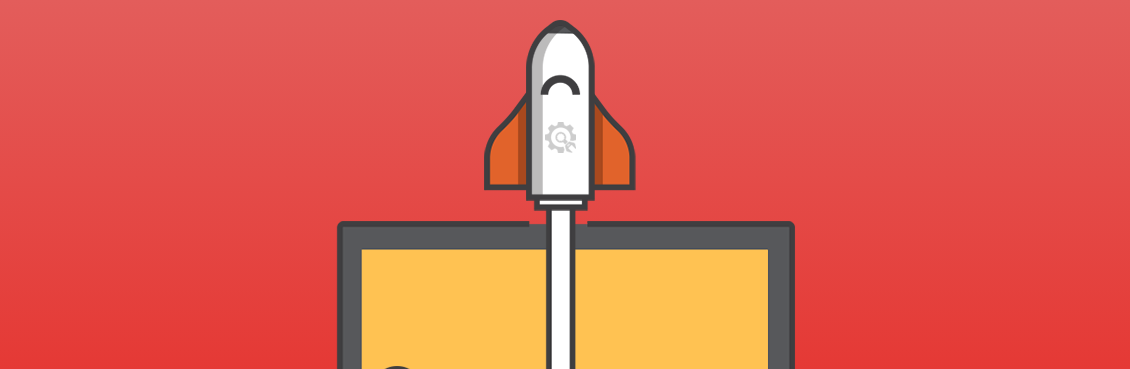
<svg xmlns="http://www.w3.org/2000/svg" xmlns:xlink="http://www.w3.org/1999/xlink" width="1130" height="369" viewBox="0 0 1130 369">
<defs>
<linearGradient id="g1" gradientUnits="userSpaceOnUse" x1="565" y1="0" x2="565" y2="369"><stop offset="0" stop-color="#e35d5b"/><stop offset="1" stop-color="#e53935"/></linearGradient>
</defs>
<rect width="100%" height="100%" fill="#ffffff"/>
<rect fill="url(#g1)" x="0" y="0" width="1130" height="369"/>
<image xlink:href="image0.png" x="336" y="20" width="460" height="349"/>
</svg>
